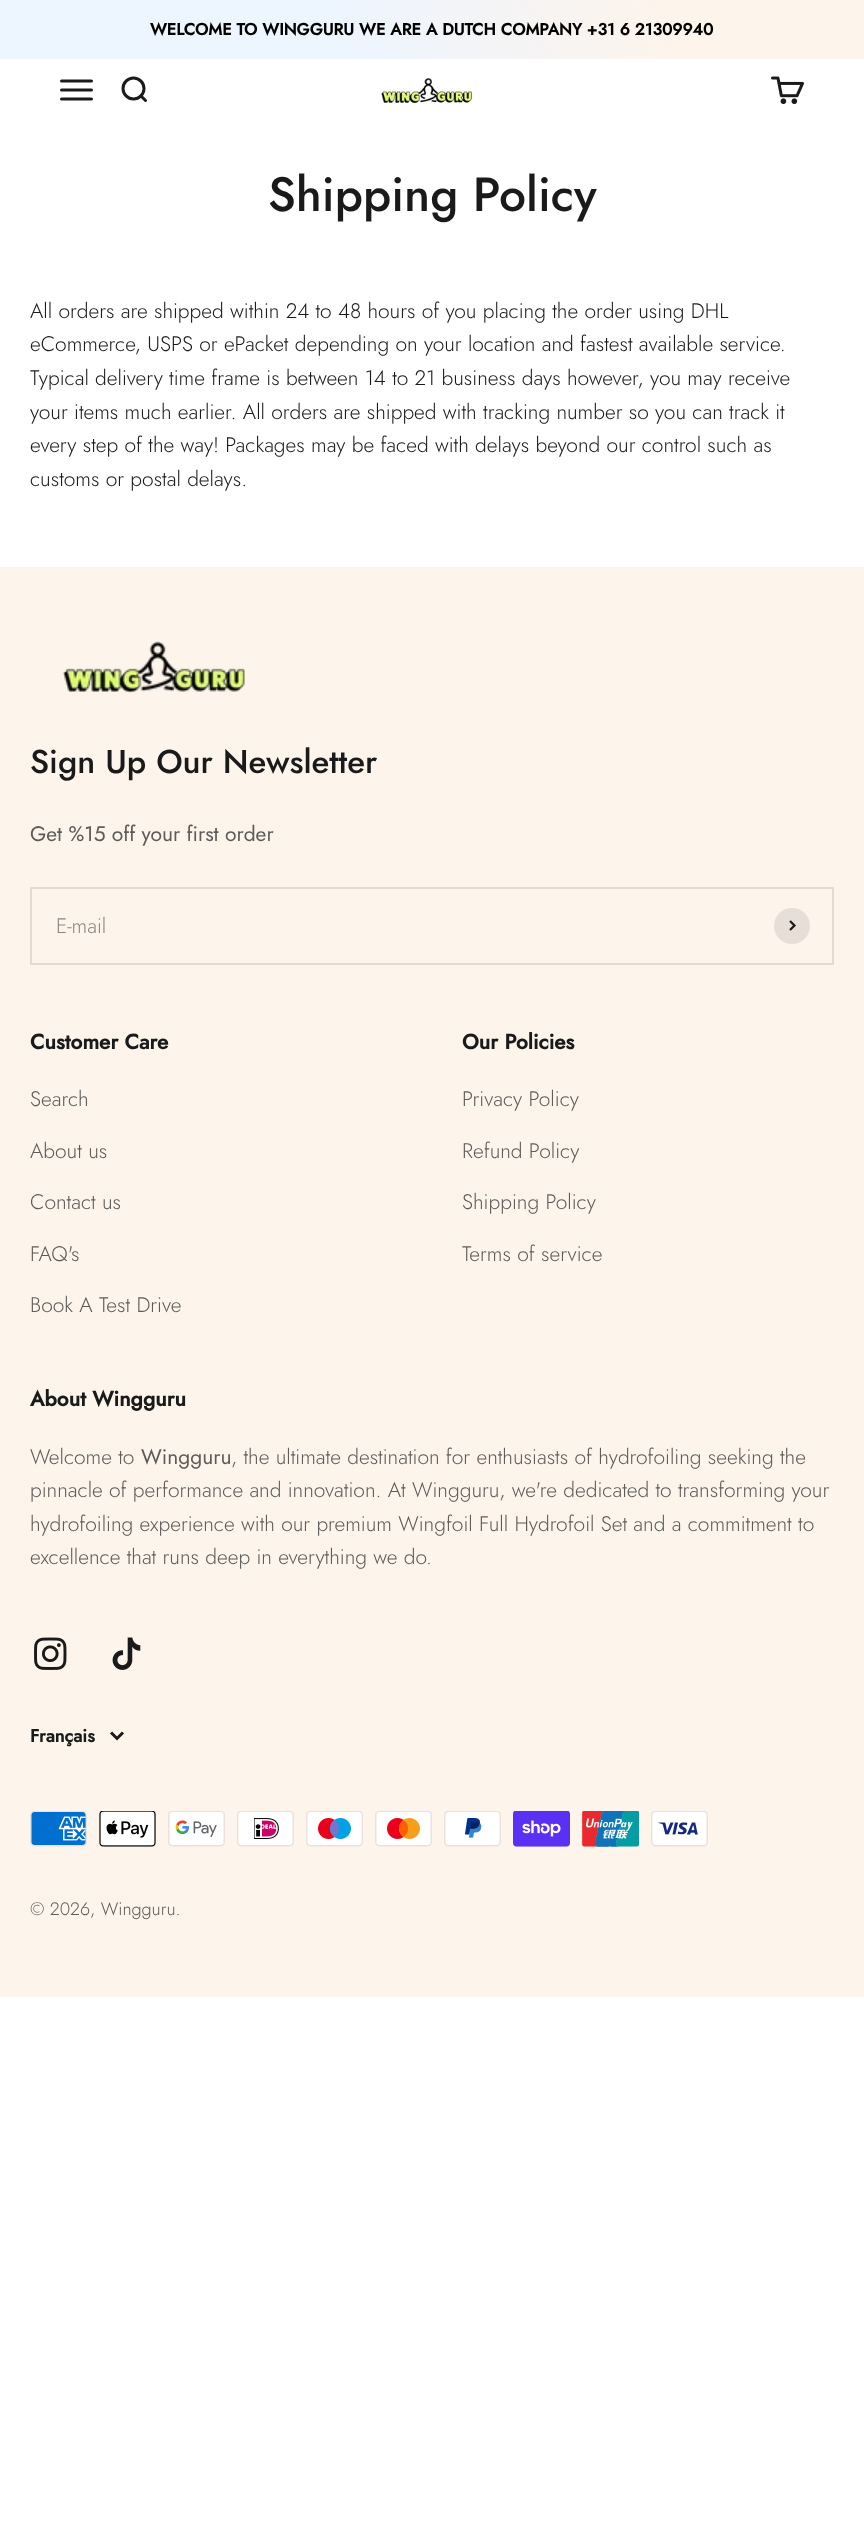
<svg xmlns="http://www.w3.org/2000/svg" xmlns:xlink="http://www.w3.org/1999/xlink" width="864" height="2534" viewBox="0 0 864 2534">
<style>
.cls-1{font:bold 16.5px Jost;fill:#000000}
.cls-2{font:500 48px Jost;fill:#1a1a1a}
.cls-3{font:300 21px Jost;fill:#1a1a1a}
.cls-4{font:500 33px Jost;fill:#1a1a1a}
.cls-5{font:21px Jost;fill:#5e5b59}
.cls-6{font:300 21px Jost;fill:#8c8783}
.cls-7{font:bold 21px Jost;fill:#1a1a1a}
.cls-8{font:300 21px Jost;fill:#5e5b59}
.cls-9{font:bold 18px Jost;fill:#1a1a1a}
.cls-10{font:300 18px Jost;fill:#5e5b59}
</style>
<defs>
<linearGradient id="g1" gradientUnits="userSpaceOnUse" x1="46" y1="178" x2="818" y2="-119"><stop offset="0.39" stop-color="#edf5ff"/><stop offset="0.77" stop-color="#fdf4ec"/></linearGradient>
</defs>
<rect width="100%" height="100%" fill="#ffffff"/>
<rect fill="url(#g1)" x="0" y="0" width="864" height="59"/>
<path fill="none" stroke="#1a1a1a" stroke-width="3" stroke-linecap="round" d="M61.5 81H91.5M61.5 90H91.5M61.5 99H91.5"/>
<circle fill="none" stroke="#1a1a1a" stroke-width="3" cx="133.5" cy="88.5" r="10.5"/>
<path fill="none" stroke="#1a1a1a" stroke-width="3" stroke-linecap="round" stroke-linejoin="round" d="M141 96L145.5 100.5"/>
<image xlink:href="image0.png" x="381" y="78" width="91" height="26"/>
<image xlink:href="image1.png" x="771" y="76" width="33" height="29"/>
<rect fill="#fdf4ec" x="0" y="567" width="864" height="1430"/>
<image xlink:href="image2.png" x="63" y="641" width="182" height="52"/>
<rect fill="none" stroke="#e2dad3" stroke-width="2" x="31" y="888" width="802" height="76"/>
<circle fill="#e6ded7" cx="792" cy="926" r="18"/>
<path fill="none" stroke="#1a1a1a" stroke-width="2.2" d="M790 930L794.5 925.5L790 921"/>
<image xlink:href="image3.png" x="34" y="1637" width="33" height="33"/>
<image xlink:href="image4.png" x="112" y="1637" width="29" height="33"/>
<path fill="none" stroke="#1a1a1a" stroke-width="3" d="M111 1732.5L117 1738.5L123 1732.5"/>
<image xlink:href="image5.png" x="30" y="1811" width="57" height="36"/>
<image xlink:href="image6.png" x="99" y="1811" width="57" height="36"/>
<image xlink:href="image7.png" x="168" y="1811" width="57" height="36"/>
<image xlink:href="image8.png" x="237" y="1811" width="57" height="36"/>
<image xlink:href="image9.png" x="306" y="1811" width="57" height="36"/>
<image xlink:href="image10.png" x="375" y="1811" width="57" height="36"/>
<image xlink:href="image11.png" x="444" y="1811" width="57" height="36"/>
<image xlink:href="image12.png" x="513" y="1811" width="57" height="36"/>
<image xlink:href="image13.png" x="582" y="1811" width="57" height="36"/>
<image xlink:href="image14.png" x="651" y="1811" width="57" height="36"/>
<text class="cls-1" x="150" y="35">WELCOME TO WINGGURU WE ARE A DUTCH COMPANY +31 6 21309940</text>
<text class="cls-2" x="268" y="211">Shipping Policy</text>
<text class="cls-3"><tspan x="30" y="318">All orders are shipped within 24 to 48 hours of you placing the order using DHL</tspan><tspan x="30" y="351">eCommerce, USPS or ePacket depending on your location and fastest available service.</tspan><tspan x="30" y="385">Typical delivery time frame is between 14 to 21 business days however, you may receive</tspan><tspan x="30" y="419">your items much earlier. All orders are shipped with tracking number so you can track it</tspan><tspan x="30" y="452">every step of the way! Packages may be faced with delays beyond our control such as</tspan><tspan x="30" y="486">customs or postal delays.</tspan></text>
<text class="cls-4" x="30" y="773">Sign Up Our Newsletter</text>
<text class="cls-5" x="30" y="841">Get %15 off your first order</text>
<text class="cls-6" x="56" y="933">E-mail</text>
<text class="cls-7" x="30" y="1049">Customer Care</text>
<text class="cls-8" x="30" y="1106">Search</text>
<text class="cls-8" x="30" y="1158">About us</text>
<text class="cls-8" x="30" y="1209">Contact us</text>
<text class="cls-8" x="30" y="1261">FAQ's</text>
<text class="cls-8" x="30" y="1312">Book A Test Drive</text>
<text class="cls-7" x="462" y="1049">Our Policies</text>
<text class="cls-8" x="462" y="1106">Privacy Policy</text>
<text class="cls-8" x="462" y="1158">Refund Policy</text>
<text class="cls-8" x="462" y="1209">Shipping Policy</text>
<text class="cls-8" x="462" y="1261">Terms of service</text>
<text class="cls-7" x="30" y="1406">About Wingguru</text>
<text class="cls-8" x="30" y="1464">Welcome to</text>
<text class="cls-5" x="141" y="1464">Wingguru</text>
<text class="cls-8" x="231" y="1464">, the ultimate destination for enthusiasts of hydrofoiling seeking the</text>
<text class="cls-8"><tspan x="30" y="1497">pinnacle of performance and innovation. At Wingguru, we're dedicated to transforming your</tspan><tspan x="30" y="1531">hydrofoiling experience with our premium Wingfoil Full Hydrofoil Set and a commitment to</tspan><tspan x="30" y="1564">excellence that runs deep in everything we do.</tspan></text>
<text class="cls-9" x="30" y="1742">Français</text>
<text class="cls-10" x="30" y="1915">© 2026, Wingguru.</text>
</svg>
